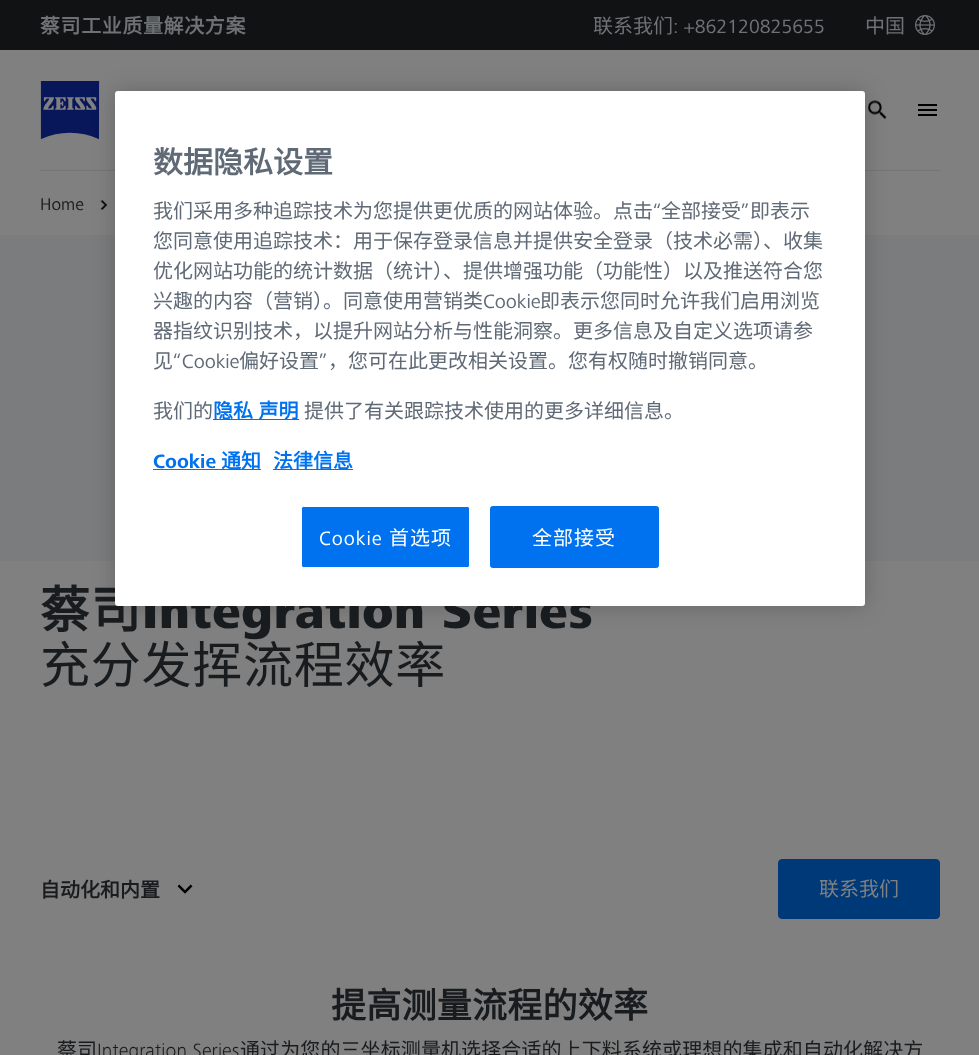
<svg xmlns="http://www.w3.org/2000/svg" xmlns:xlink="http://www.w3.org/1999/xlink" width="979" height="1055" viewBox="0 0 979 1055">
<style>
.cls-1{font:bold 20px Noto Sans CJK SC;letter-spacing:0.6px;fill:#6e7275}
.cls-2{font:20px Noto Sans CJK SC;fill:#6e7275}
.cls-3{font:20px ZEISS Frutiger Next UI;fill:#6e7275}
.cls-4{font:17.5px ZEISS Frutiger Next UI;fill:#191c1f}
.cls-5{font:bold 50px Noto Sans CJK SC;letter-spacing:0.75px;fill:#191c1f}
.cls-6{font:900 50px ZEISS Frutiger Next UI;letter-spacing:0.75px;fill:#191c1f}
.cls-7{font:20px Noto Sans CJK SC;letter-spacing:1px;fill:#ffffff}
.cls-8{font:20px ZEISS Frutiger Next UI;letter-spacing:1px;fill:#ffffff}
.cls-9{font:bold 20px Noto Sans CJK SC;fill:#0072ef}
.cls-10{font:bold 20px ZEISS Frutiger Next UI;fill:#0072ef}
.cls-11{font:20px Noto Sans CJK SC;fill:#606a76}
.cls-12{font:20px ZEISS Frutiger Next UI;fill:#606a76}
.cls-13{font:bold 30px Noto Sans CJK SC;fill:#606a76}
.cls-14{font:50px Noto Sans CJK SC;letter-spacing:0.75px;fill:#191c1f}
.cls-15{font:bold 20px Noto Sans CJK SC;fill:#191c1f}
.cls-16{font:20px Noto Sans CJK SC;fill:#808080}
.cls-17{font:bold 35px Noto Sans CJK SC;letter-spacing:0.25px;fill:#191c1f}
.cls-18{font:20px Noto Sans CJK SC;letter-spacing:0.1px;fill:#191c1f}
.cls-19{font:300 20px ZEISS Frutiger Next UI;letter-spacing:0.1px;fill:#191c1f}
</style>
<rect width="100%" height="100%" fill="#808080"/>
<rect fill="#101214" x="0" y="0" width="979" height="50"/>
<image xlink:href="image0.png" x="915" y="15" width="20" height="20"/>
<image xlink:href="image1.png" x="40" y="81" width="60" height="59"/>
<image xlink:href="image2.png" x="868" y="100" width="19" height="20"/>
<rect fill="#000000" x="918" y="104" width="19" height="2"/>
<rect fill="#000000" x="918" y="109" width="19" height="2"/>
<rect fill="#000000" x="918" y="114" width="19" height="2"/>
<rect fill="#737678" x="40" y="170" width="900" height="1"/>
<image xlink:href="image3.png" x="100" y="200" width="8" height="10"/>
<rect fill="#7b7c7d" x="0" y="235" width="979" height="326"/>
<rect fill="#000000" fill-opacity="0.2" filter="blur(11px)" x="115" y="91" width="750" height="515" rx="3"/>
<image xlink:href="image4.png" x="177" y="884" width="16" height="10"/>
<rect fill="#003978" stroke="#003978" x="778.5" y="859.5" width="161" height="59" rx="3.5"/>
<text class="cls-1" x="40" y="33">蔡司工业质量解决方案</text>
<text class="cls-2" x="593" y="33">联系我们</text>
<text class="cls-3" x="673" y="33">: +862120825655</text>
<text class="cls-2" x="865" y="33">中国</text>
<text class="cls-4" x="40" y="210">Home</text>
<text class="cls-5" x="40" y="628">蔡司</text>
<text class="cls-6" x="142" y="628">Integration Series</text>
<rect fill="#ffffff" x="115" y="91" width="750" height="515" rx="3"/>
<rect fill="#0072ef" stroke="#ffffff" x="301.5" y="506.5" width="168" height="61" rx="2"/>
<text class="cls-7" x="389" y="545">首选项</text>
<text class="cls-8" x="319" y="545">Cookie</text>
<rect fill="#0072ef" stroke="#0072ef" x="490.5" y="506.5" width="168" height="61" rx="2"/>
<text class="cls-7" x="532" y="545">全部接受</text>
<rect fill="#0072ef" x="273" y="469" width="80" height="1"/>
<text class="cls-9" x="273" y="468">法律信息</text>
<rect fill="#0072ef" x="153" y="469" width="108" height="1"/>
<text class="cls-9" x="221" y="468">通知</text>
<text class="cls-10" x="153" y="468">Cookie</text>
<text class="cls-11" x="304" y="418">提供了有关跟踪技术使用的更多详细信息。</text>
<rect fill="#0072ef" x="213" y="419" width="86" height="1"/>
<text class="cls-9" x="213" y="418" word-spacing="1">隐私 声明</text>
<text class="cls-11" x="153" y="418">我们的</text>
<text class="cls-11" x="328" y="368">，您可在此更改相关设置。您有权随时撤销同意。</text>
<text class="cls-12" x="319" y="368">”</text>
<text class="cls-11" x="239" y="368">偏好设置</text>
<text class="cls-12" x="173" y="368">“Cookie</text>
<text class="cls-11" x="153" y="368">见</text>
<text class="cls-11" x="153" y="338">器指纹识别技术，以提升网站分析与性能洞察。更多信息及自定义选项请参</text>
<text class="cls-11" x="540" y="308">即表示您同时允许我们启用浏览</text>
<text class="cls-12" x="483" y="308">Cookie</text>
<text class="cls-11" x="153" y="308">兴趣的内容（营销）。同意使用营销类</text>
<text class="cls-11" x="153" y="278">优化网站功能的统计数据（统计）、提供增强功能（功能性）以及推送符合您</text>
<text class="cls-11" x="153" y="248">您同意使用追踪技术：用于保存登录信息并提供安全登录（技术必需）、收集</text>
<text class="cls-11" x="750" y="218">即表示</text>
<text class="cls-12" x="741" y="218">”</text>
<text class="cls-11" x="661" y="218">全部接受</text>
<text class="cls-12" x="653" y="218">“</text>
<text class="cls-11" x="153" y="218">我们采用多种追踪技术为您提供更优质的网站体验。点击</text>
<text class="cls-13" x="153" y="173">数据隐私设置</text>
<text class="cls-14" x="40" y="683">充分发挥流程效率</text>
<text class="cls-15" x="40" y="897">自动化和内置</text>
<text class="cls-16" x="819" y="896">联系我们</text>
<text class="cls-17" x="331" y="1018">提高测量流程的效率</text>
<text class="cls-18" x="57" y="1057">蔡司</text>
<text class="cls-19" x="97" y="1057">Integration Series</text>
<text class="cls-18" x="240" y="1057">通过为您的三坐标测量机选择合适的上下料系统或理想的集成和自动化解决方</text>
</svg>
